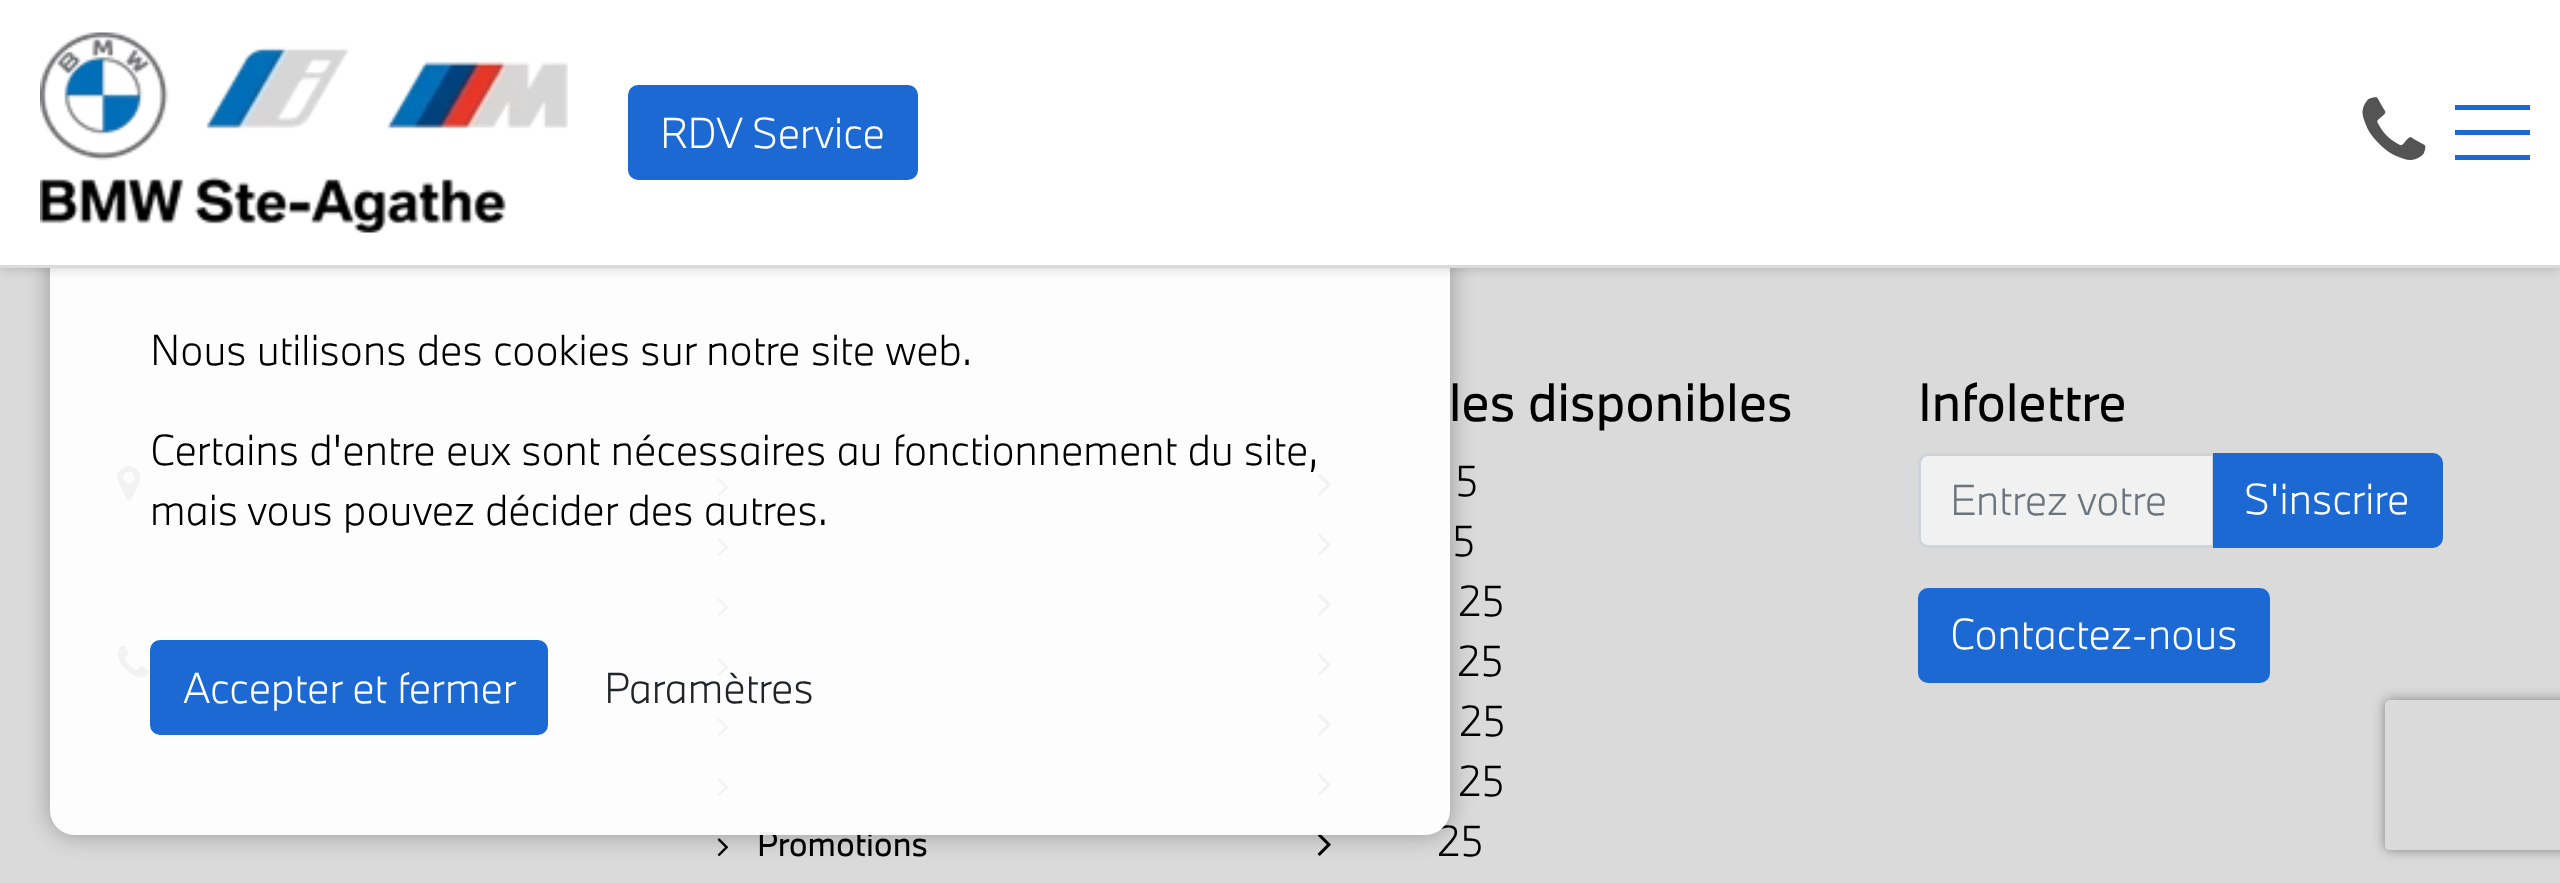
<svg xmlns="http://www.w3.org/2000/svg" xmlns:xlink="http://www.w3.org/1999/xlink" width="2560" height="883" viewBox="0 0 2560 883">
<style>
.cls-1{font:50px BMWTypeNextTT;fill:#000000}
.cls-2{font:300 40px BMWTypeNextTT;fill:#000000}
.cls-3{font:300 40px BMWTypeNextTT;fill:#6c757d}
.cls-4{font:300 40px BMWTypeNextTT;fill:#ffffff}
.cls-5{font:32px BMWTypeNextTT;fill:#000000}
.cls-6{font:300 40px BMWTypeNextTT;fill:#212529}
</style>
<defs>
<clipPath id="clip1"><path d="M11 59H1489V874H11ZM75 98H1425C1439 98 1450 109 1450 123V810C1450 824 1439 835 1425 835H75C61 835 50 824 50 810V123C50 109 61 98 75 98Z" clip-rule="evenodd"/></clipPath>
<clipPath id="clip2"><path d="M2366 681H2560V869H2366ZM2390 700H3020C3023 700 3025 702 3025 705V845C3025 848 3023 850 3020 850H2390C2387 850 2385 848 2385 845V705C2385 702 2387 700 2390 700Z" clip-rule="evenodd"/></clipPath>
</defs>
<rect width="100%" height="100%" fill="#dadada"/>
<image xlink:href="image2.png" x="117" y="466" width="24" height="35"/>
<image xlink:href="image3.png" x="117" y="646" width="32" height="32"/>
<image xlink:href="image4.png" x="1317" y="473" width="14" height="23"/>
<image xlink:href="image4.png" x="1317" y="533" width="14" height="23"/>
<image xlink:href="image4.png" x="1317" y="593" width="14" height="23"/>
<image xlink:href="image4.png" x="1317" y="653" width="14" height="23"/>
<image xlink:href="image4.png" x="1317" y="713" width="14" height="23"/>
<image xlink:href="image4.png" x="1317" y="773" width="14" height="23"/>
<image xlink:href="image4.png" x="1317" y="833" width="14" height="23"/>
<image xlink:href="image5.png" x="717" y="478" width="12" height="19"/>
<image xlink:href="image5.png" x="717" y="538" width="12" height="19"/>
<image xlink:href="image5.png" x="717" y="598" width="12" height="19"/>
<image xlink:href="image5.png" x="717" y="658" width="12" height="19"/>
<image xlink:href="image5.png" x="717" y="718" width="12" height="19"/>
<image xlink:href="image5.png" x="717" y="778" width="12" height="19"/>
<image xlink:href="image5.png" x="717" y="838" width="12" height="19"/>
<g clip-path="url(#clip1)">
<rect fill="#000000" fill-opacity="0.3" filter="blur(12.5px)" x="50" y="98" width="1400" height="737" rx="25"/>
</g>
<path fill="#f1f1f1" stroke="#ced4da" stroke-width="3" d="M1928 454.5H2213.5V546.5H1928C1923.5 546.5 1919.5 542.5 1919.5 538V463C1919.5 458.5 1923.5 454.5 1928 454.5Z"/>
<path fill="#1c69d4" stroke="#1c69d4" stroke-width="3" d="M2214.5 454.5H2433C2437.5 454.5 2441.5 458.5 2441.5 463V538C2441.5 542.5 2437.5 546.5 2433 546.5H2214.5Z"/>
<rect fill="#1c69d4" stroke="#1c69d4" stroke-width="3" x="1919.5" y="589.5" width="349" height="92" rx="8.5"/>
<g clip-path="url(#clip2)">
<rect fill="#808080" filter="blur(6px)" x="2385" y="700" width="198" height="150" rx="5"/>
</g>
<text class="cls-1" x="1449" y="421">les disponibles</text>
<text class="cls-2" x="1455" y="496">5</text>
<text class="cls-2" x="1452" y="556">5</text>
<text class="cls-2" x="1459" y="616">25</text>
<text class="cls-2" x="1458" y="676">25</text>
<text class="cls-2" x="1460" y="736">25</text>
<text class="cls-2" x="1459" y="796">25</text>
<text class="cls-2" x="1438" y="856">25</text>
<text class="cls-1" x="1918" y="421">Infolettre</text>
<text class="cls-3" x="1950" y="515">Entrez votre</text>
<text class="cls-4" x="2244" y="514">S'inscrire</text>
<text class="cls-4" x="1950" y="649">Contactez-nous</text>
<text class="cls-5" x="757" y="856">Promotions</text>
<rect fill="#ffffff" fill-opacity="0.95" x="50" y="98" width="1400" height="737" rx="25"/>
<rect fill="#000000" fill-opacity="0.2" filter="blur(6px)" x="0" y="0" width="2560" height="268"/>
<rect fill="#ffffff" x="0" y="0" width="2560" height="265"/>
<rect fill="#1c69d4" x="2455" y="105" width="75" height="5"/>
<rect fill="#1c69d4" x="2455" y="155" width="75" height="5"/>
<rect fill="#1c69d4" x="2455" y="130" width="75" height="5"/>
<image xlink:href="image1.png" x="2362" y="97" width="64" height="63"/>
<rect fill="#1c69d4" stroke="#1c69d4" stroke-width="3" x="629.5" y="86.5" width="287" height="92" rx="8.5"/>
<text class="cls-4" x="660" y="148">RDV Service</text>
<image xlink:href="image0.png" x="40" y="32" width="528" height="201"/>
<rect fill="#dadada" x="0" y="265" width="2560" height="3"/>
<text class="cls-6" x="604" y="703">Paramètres</text>
<rect fill="#1c69d4" stroke="#1c69d4" stroke-width="3" x="151.5" y="641.5" width="395" height="92" rx="8.5"/>
<text class="cls-4" x="183" y="703">Accepter et fermer</text>
<text class="cls-2" x="150" y="525">mais vous pouvez décider des autres.</text>
<text class="cls-2" x="150" y="465">Certains d'entre eux sont nécessaires au fonctionnement du site,</text>
<text class="cls-2" x="150" y="365">Nous utilisons des cookies sur notre site web.</text>
</svg>
